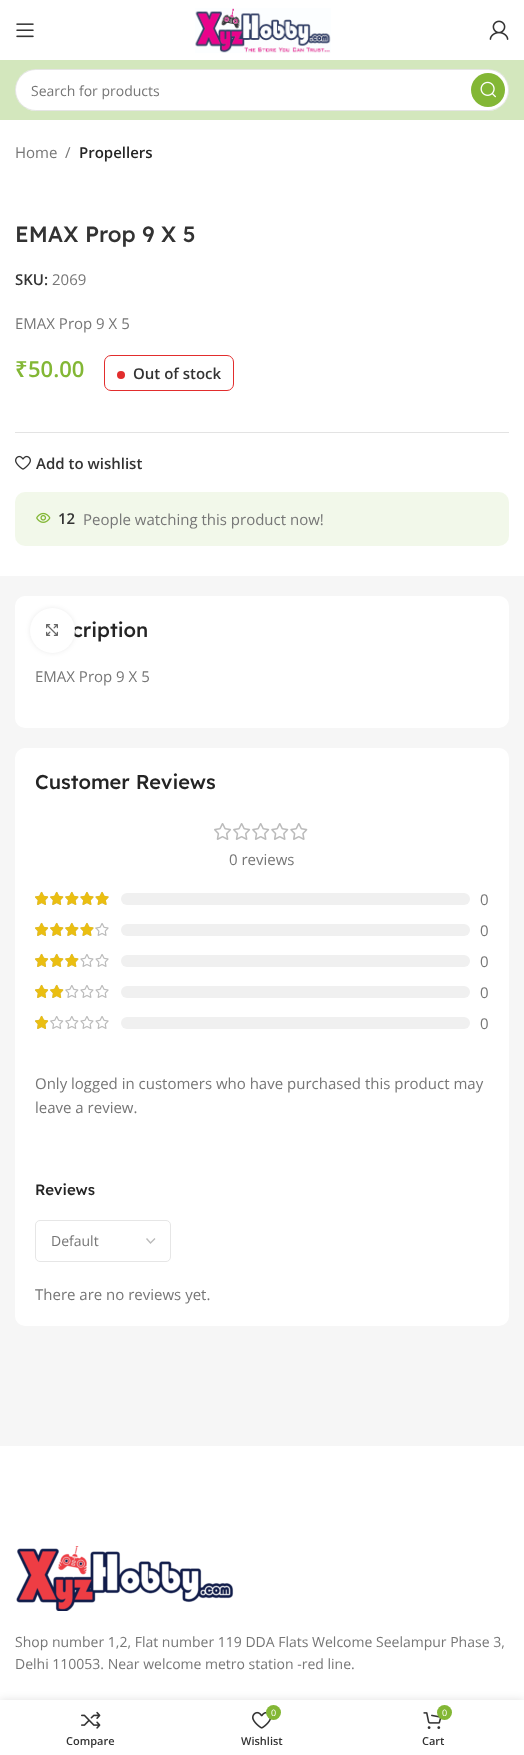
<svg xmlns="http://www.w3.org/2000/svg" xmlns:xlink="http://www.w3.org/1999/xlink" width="524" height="1755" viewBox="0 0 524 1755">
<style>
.cls-1{font:14px Open Sans;fill:#767676}
.cls-2{font:15px Open Sans;fill:#767676}
.cls-3{font:600 15px Open Sans;fill:#242424}
.cls-4{font:500 22px Lexend Deca;fill:#333333}
.cls-5{font:600 15px Open Sans;fill:#333333}
.cls-6{font:600 22px Noto Sans;fill:#83b735}
.cls-7{font:600 22px Open Sans;fill:#83b735}
.cls-8{font:500 20px Lexend Deca;fill:#242424}
.cls-9{font:500 15px Lexend Deca;fill:#242424}
.cls-10{font:600 11px Open Sans;fill:#333333}
.cls-11{font:9px Open Sans;fill:#ffffff}
</style>
<rect width="100%" height="100%" fill="#ffffff"/>
<image xlink:href="image0.png" x="16" y="23" width="18" height="15"/>
<image xlink:href="image1.png" x="195" y="8" width="136" height="45"/>
<image xlink:href="image2.png" x="489" y="20" width="20" height="20"/>
<rect fill="#d3e7bd" x="0" y="60" width="524" height="60"/>
<rect fill="#ffffff" x="15" y="69" width="494" height="42" rx="21"/>
<rect fill="none" stroke="#000000" stroke-opacity="0.1" x="15.5" y="69.5" width="493" height="41" rx="20.5"/>
<circle fill="#83b735" cx="488" cy="90" r="17"/>
<image xlink:href="image3.png" x="480" y="81" width="16" height="17"/>
<rect fill="#f6f6f6" x="0" y="576" width="524" height="870"/>
<rect fill="none" stroke="#e22d2d" x="104.5" y="355.5" width="129" height="35" rx="6.5"/>
<circle fill="#e22d2d" cx="121" cy="375" r="4"/>
<rect fill="#e3e3e3" x="15" y="432" width="494" height="1"/>
<image xlink:href="image4.png" x="15" y="455" width="16" height="15"/>
<image xlink:href="image5.png" x="36" y="512" width="15" height="11"/>
<rect fill="#83b735" fill-opacity="0.1" x="15" y="492" width="494" height="54" rx="10"/>
<rect fill="#ffffff" x="15" y="596" width="494" height="132" rx="10"/>
<rect fill="#000000" fill-opacity="0.08" filter="blur(2.5px)" x="30" y="608" width="45" height="45" rx="22.5"/>
<rect fill="#ffffff" x="15" y="748" width="494" height="578" rx="10"/>
<image xlink:href="image7.png" x="214" y="823" width="94" height="17"/>
<image xlink:href="image9.png" x="35" y="892" width="74" height="13"/>
<image xlink:href="image8.png" x="35" y="891" width="74" height="14"/>
<rect fill="#f0f0f0" x="121" y="893" width="349" height="12" rx="6"/>
<image xlink:href="image9.png" x="35" y="923" width="74" height="13"/>
<image xlink:href="image10.png" x="35" y="922" width="61" height="14"/>
<rect fill="#f0f0f0" x="121" y="924" width="349" height="12" rx="6"/>
<image xlink:href="image9.png" x="35" y="954" width="74" height="13"/>
<image xlink:href="image11.png" x="35" y="953" width="44" height="14"/>
<rect fill="#f0f0f0" x="121" y="955" width="349" height="12" rx="6"/>
<image xlink:href="image9.png" x="35" y="985" width="74" height="13"/>
<image xlink:href="image12.png" x="35" y="984" width="29" height="14"/>
<rect fill="#f0f0f0" x="121" y="986" width="349" height="12" rx="6"/>
<image xlink:href="image9.png" x="35" y="1016" width="74" height="13"/>
<image xlink:href="image13.png" x="35" y="1015" width="14" height="14"/>
<rect fill="#f0f0f0" x="121" y="1017" width="349" height="12" rx="6"/>
<path fill="none" stroke="#bbbbbb" stroke-width="1.4" d="M146.5 1238.5L150.5 1243L155 1238.5"/>
<rect fill="none" stroke="#e6e6e6" x="35.5" y="1220.5" width="135" height="41" rx="4.5"/>
<image xlink:href="image14.png" x="16" y="1546" width="218" height="65"/>
<rect fill="#000000" fill-opacity="0.12" filter="blur(4.5px)" x="0" y="1700" width="524" height="55"/>
<rect fill="#ffffff" x="0" y="1700" width="524" height="55"/>
<image xlink:href="image15.png" x="81" y="1711" width="20" height="18"/>
<image xlink:href="image16.png" x="252" y="1711" width="20" height="18"/>
<circle fill="#83b735" cx="273.5" cy="1712.5" r="7.5"/>
<image xlink:href="image17.png" x="423" y="1712" width="19" height="17"/>
<circle fill="#83b735" cx="444.5" cy="1712.5" r="7.5"/>
<text class="cls-1" x="31" y="96">Search for products</text>
<text class="cls-2" x="15" y="158">Home</text>
<text class="cls-2" x="65" y="158">/</text>
<text class="cls-3" x="79" y="158">Propellers</text>
<text class="cls-4" x="15" y="242">EMAX Prop 9 X 5</text>
<text class="cls-5" x="15" y="285">SKU:</text>
<text class="cls-2" x="52" y="285">2069</text>
<text class="cls-2" x="15" y="329">EMAX Prop 9 X 5</text>
<text class="cls-6" x="15" y="377">₹</text>
<text class="cls-7" x="28" y="377">50.00</text>
<text class="cls-5" x="133" y="379">Out of stock</text>
<text class="cls-5" x="36" y="469">Add to wishlist</text>
<text class="cls-5" x="58" y="524">12</text>
<text class="cls-2" x="83" y="525">People watching this product now!</text>
<text class="cls-8" x="72" y="637">cription</text>
<circle fill="#ffffff" cx="52.5" cy="630.5" r="22.5"/>
<image xlink:href="image6.png" x="46" y="624" width="12" height="12"/>
<text class="cls-2" x="35" y="682">EMAX Prop 9 X 5</text>
<text class="cls-8" x="35" y="789">Customer Reviews</text>
<text class="cls-2" x="229" y="865">0 reviews</text>
<text class="cls-2" x="480" y="905">0</text>
<text class="cls-2" x="480" y="936">0</text>
<text class="cls-2" x="480" y="967">0</text>
<text class="cls-2" x="480" y="998">0</text>
<text class="cls-2" x="480" y="1029">0</text>
<text class="cls-2"><tspan x="35" y="1089">Only logged in customers who have purchased this product may</tspan><tspan x="35" y="1113">leave a review.</tspan></text>
<text class="cls-9" x="35" y="1195">Reviews</text>
<text class="cls-1" x="51" y="1246">Default</text>
<text class="cls-2" x="35" y="1300">There are no reviews yet.</text>
<text class="cls-1"><tspan x="15" y="1647">Shop number 1,2, Flat number 119 DDA Flats Welcome Seelampur Phase 3,</tspan><tspan x="15" y="1669">Delhi 110053. Near welcome metro station -red line.</tspan></text>
<text class="cls-10" x="66" y="1745">Compare</text>
<text class="cls-11" x="271" y="1716">0</text>
<text class="cls-10" x="241" y="1745">Wishlist</text>
<text class="cls-11" x="442" y="1716">0</text>
<text class="cls-10" x="422" y="1745">Cart</text>
</svg>
